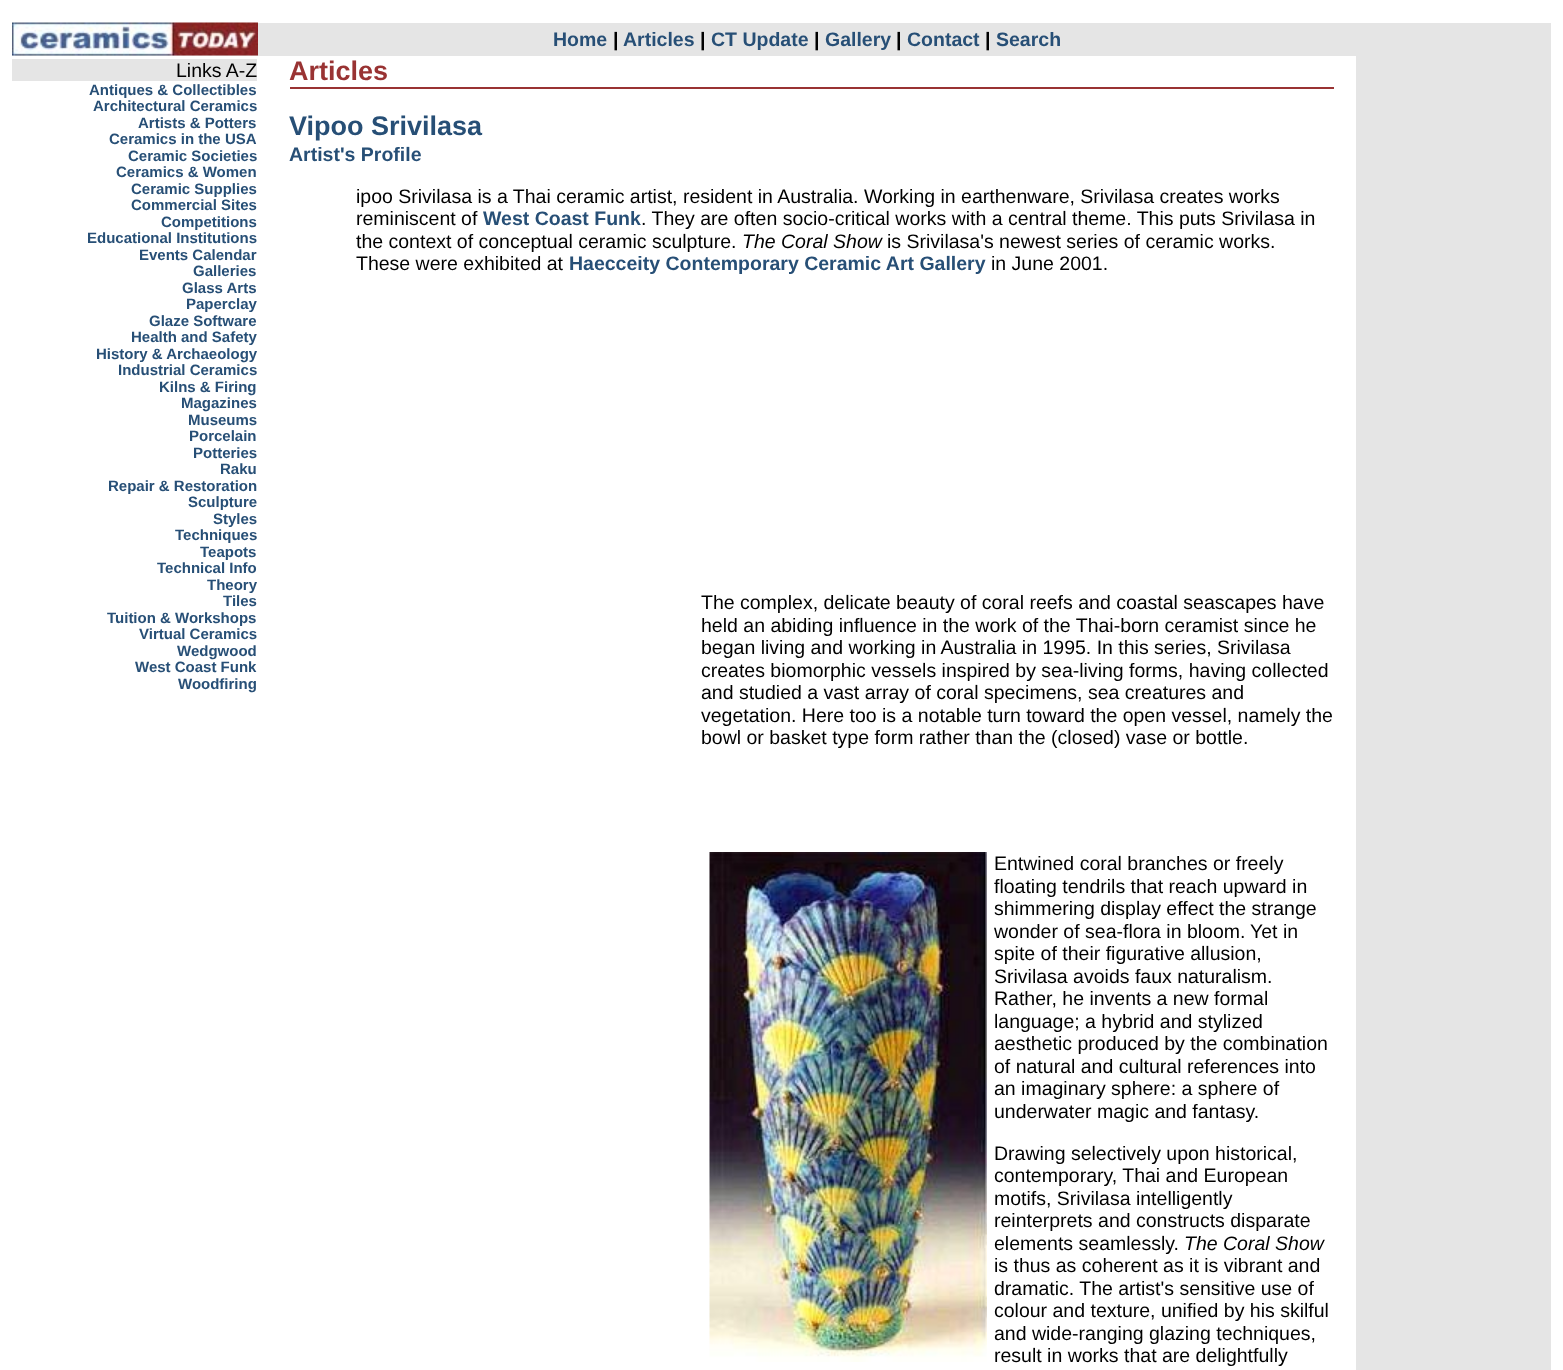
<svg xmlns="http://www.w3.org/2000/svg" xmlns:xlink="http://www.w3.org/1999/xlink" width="1563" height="1370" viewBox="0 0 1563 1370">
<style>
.cls-1{font:bold 19.5px Liberation Sans;fill:#274f76}
.cls-2{font:bold 19.5px Liberation Sans;fill:#000000}
.cls-3{font:19.5px Liberation Sans;fill:#000000}
.cls-4{font:bold 15px Liberation Sans;fill:#274f76}
.cls-5{font:bold 27px Liberation Sans;fill:#993333}
.cls-6{font:bold 27px Liberation Sans;fill:#274f76}
.cls-7{font:italic 19.5px Liberation Sans;fill:#000000}
</style>
<rect width="100%" height="100%" fill="#ffffff"/>
<rect fill="#e5e5e5" x="12" y="23" width="1539" height="33"/>
<image xlink:href="image0.png" x="12" y="22" width="246" height="34"/>
<rect fill="#e5e5e5" x="12" y="59" width="245" height="22"/>
<rect fill="#993333" x="290" y="87" width="1044" height="2"/>
<image xlink:href="image1.png" x="709" y="852" width="278" height="510"/>
<rect fill="#e5e5e5" x="1356" y="56" width="195" height="1314"/>
<text class="cls-1" x="553" y="46">Home</text>
<text class="cls-2" x="613" y="46">|</text>
<text class="cls-1" x="623" y="46">Articles</text>
<text class="cls-2" x="700" y="46">|</text>
<text class="cls-1" x="711" y="46">CT Update</text>
<text class="cls-2" x="814" y="46">|</text>
<text class="cls-1" x="825" y="46">Gallery</text>
<text class="cls-2" x="896" y="46">|</text>
<text class="cls-1" x="907" y="46">Contact</text>
<text class="cls-2" x="985" y="46">|</text>
<text class="cls-1" x="996" y="46">Search</text>
<text class="cls-3" x="176" y="77">Links A-Z</text>
<text class="cls-4" x="89" y="95">Antiques &amp; Collectibles</text>
<text class="cls-4" x="93" y="111">Architectural Ceramics</text>
<text class="cls-4" x="138" y="128">Artists &amp; Potters</text>
<text class="cls-4" x="109" y="144">Ceramics in the USA</text>
<text class="cls-4" x="128" y="161">Ceramic Societies</text>
<text class="cls-4" x="116" y="177">Ceramics &amp; Women</text>
<text class="cls-4"><tspan x="131" y="194">Ceramic Supplies</tspan><tspan x="131" y="210">Commercial Sites</tspan></text>
<text class="cls-4" x="161" y="227">Competitions</text>
<text class="cls-4" x="87" y="243">Educational Institutions</text>
<text class="cls-4" x="139" y="260">Events Calendar</text>
<text class="cls-4" x="193" y="276">Galleries</text>
<text class="cls-4" x="182" y="293">Glass Arts</text>
<text class="cls-4" x="186" y="309">Paperclay</text>
<text class="cls-4" x="149" y="326">Glaze Software</text>
<text class="cls-4" x="131" y="342">Health and Safety</text>
<text class="cls-4" x="96" y="359">History &amp; Archaeology</text>
<text class="cls-4" x="118" y="375">Industrial Ceramics</text>
<text class="cls-4" x="159" y="392">Kilns &amp; Firing</text>
<text class="cls-4" x="181" y="408">Magazines</text>
<text class="cls-4" x="188" y="425">Museums</text>
<text class="cls-4" x="189" y="441">Porcelain</text>
<text class="cls-4" x="193" y="458">Potteries</text>
<text class="cls-4" x="220" y="474">Raku</text>
<text class="cls-4" x="108" y="491">Repair &amp; Restoration</text>
<text class="cls-4" x="188" y="507">Sculpture</text>
<text class="cls-4" x="213" y="524">Styles</text>
<text class="cls-4" x="175" y="540">Techniques</text>
<text class="cls-4" x="200" y="557">Teapots</text>
<text class="cls-4" x="157" y="573">Technical Info</text>
<text class="cls-4" x="207" y="590">Theory</text>
<text class="cls-4" x="223" y="606">Tiles</text>
<text class="cls-4" x="107" y="623">Tuition &amp; Workshops</text>
<text class="cls-4" x="139" y="639">Virtual Ceramics</text>
<text class="cls-4" x="177" y="656">Wedgwood</text>
<text class="cls-4" x="135" y="672">West Coast Funk</text>
<text class="cls-4" x="178" y="689">Woodfiring</text>
<text class="cls-5" x="289" y="80">Articles</text>
<text class="cls-6" x="289" y="135">Vipoo Srivilasa</text>
<text class="cls-1" x="289" y="161">Artist's Profile</text>
<text class="cls-3"><tspan x="356" y="203">ipoo Srivilasa is a Thai ceramic artist, resident in Australia. Working in earthenware, Srivilasa creates works</tspan><tspan x="356" y="225">reminiscent of</tspan></text>
<text class="cls-1" x="483" y="225">West Coast Funk</text>
<text class="cls-3" x="641" y="225">. They are often socio-critical works with a central theme. This puts Srivilasa in</text>
<text class="cls-3" x="356" y="248">the context of conceptual ceramic sculpture.</text>
<text class="cls-7" x="742" y="248">The Coral Show</text>
<text class="cls-3" x="887" y="248">is Srivilasa's newest series of ceramic works.</text>
<text class="cls-3" x="356" y="270">These were exhibited at</text>
<text class="cls-1" x="569" y="270">Haecceity Contemporary Ceramic Art Gallery</text>
<text class="cls-3" x="991" y="270">in June 2001.</text>
<text class="cls-3"><tspan x="701" y="609">The complex, delicate beauty of coral reefs and coastal seascapes have</tspan><tspan x="701" y="632">held an abiding influence in the work of the Thai-born ceramist since he</tspan><tspan x="701" y="654">began living and working in Australia in 1995. In this series, Srivilasa</tspan><tspan x="701" y="677">creates biomorphic vessels inspired by sea-living forms, having collected</tspan><tspan x="701" y="699">and studied a vast array of coral specimens, sea creatures and</tspan><tspan x="701" y="722">vegetation. Here too is a notable turn toward the open vessel, namely the</tspan><tspan x="701" y="744">bowl or basket type form rather than the (closed) vase or bottle.</tspan></text>
<text class="cls-3"><tspan x="994" y="870">Entwined coral branches or freely</tspan><tspan x="994" y="893">floating tendrils that reach upward in</tspan><tspan x="994" y="915">shimmering display effect the strange</tspan><tspan x="994" y="938">wonder of sea-flora in bloom.</tspan></text>
<text class="cls-3" x="1250" y="938">Yet in</text>
<text class="cls-3"><tspan x="994" y="960">spite of their figurative allusion,</tspan><tspan x="994" y="983">Srivilasa avoids faux naturalism.</tspan><tspan x="994" y="1005">Rather, he invents a new formal</tspan><tspan x="994" y="1028">language; a hybrid and stylized</tspan><tspan x="994" y="1050">aesthetic produced by the combination</tspan><tspan x="994" y="1073">of natural and cultural references into</tspan><tspan x="994" y="1095">an imaginary sphere: a sphere of</tspan><tspan x="994" y="1118">underwater magic and fantasy.</tspan></text>
<text class="cls-3"><tspan x="994" y="1160">Drawing selectively upon historical,</tspan><tspan x="994" y="1182">contemporary, Thai and European</tspan><tspan x="994" y="1205">motifs, Srivilasa intelligently</tspan><tspan x="994" y="1227">reinterprets and constructs disparate</tspan><tspan x="994" y="1250">elements seamlessly.</tspan></text>
<text class="cls-7" x="1184" y="1250">The Coral Show</text>
<text class="cls-3"><tspan x="994" y="1272">is thus as coherent as it is vibrant and</tspan><tspan x="994" y="1295">dramatic. The artist's sensitive use of</tspan><tspan x="994" y="1317">colour and texture, unified by his skilful</tspan><tspan x="994" y="1340">and wide-ranging glazing techniques,</tspan><tspan x="994" y="1362">result in works that are delightfully</tspan></text>
</svg>
